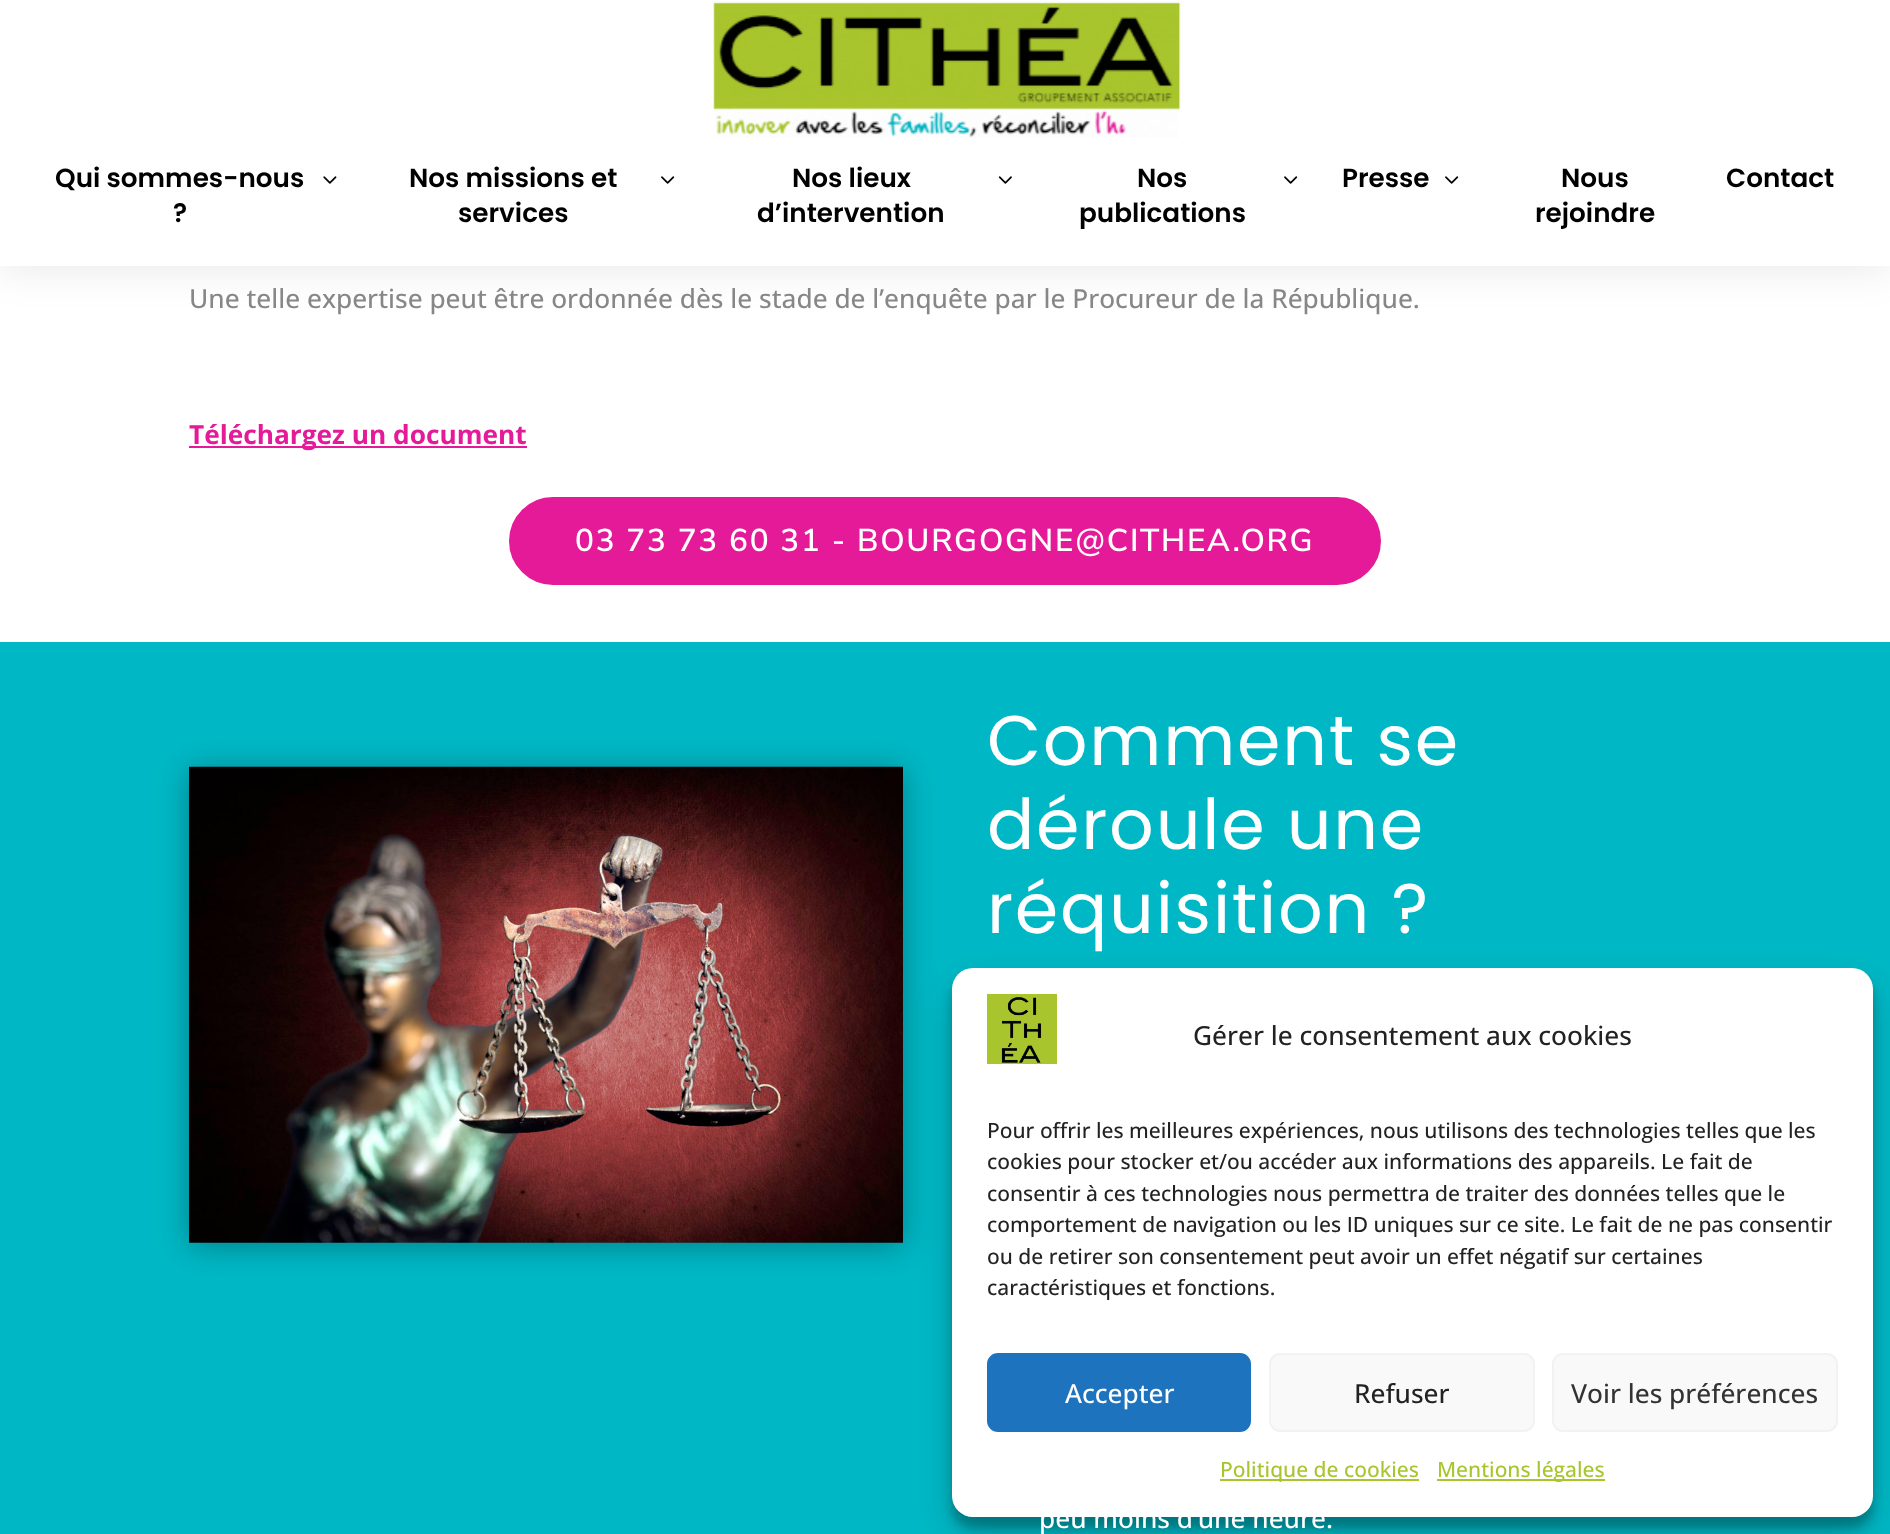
<svg xmlns="http://www.w3.org/2000/svg" xmlns:xlink="http://www.w3.org/1999/xlink" width="1890" height="1534" viewBox="0 0 1890 1534">
<style>
.cls-1{font:600 26.25px Poppins;fill:#000000}
.cls-2{font:500 26.25px Open Sans;fill:#878787}
.cls-3{font:bold 26.25px Open Sans;fill:#e51a98}
.cls-4{font:600 31.5px Nunito Sans;letter-spacing:1.75px;fill:#ffffff}
.cls-5{font:70px Poppins;letter-spacing:1.75px;fill:#ffffff}
.cls-6{font:500 26.25px Open Sans;fill:#ffffff}
.cls-7{font:500 26.25px Open Sans;fill:#222222}
.cls-8{font:500 21px Open Sans;fill:#222222}
.cls-9{font:500 26.25px Open Sans;fill:#333333}
.cls-10{font:500 21px Open Sans;fill:#a8c52d}
</style>
<rect width="100%" height="100%" fill="#ffffff"/>
<rect fill="#000000" fill-opacity="0.1" filter="blur(22px)" x="0" y="0" width="1890" height="266"/>
<rect fill="#ffffff" x="0" y="0" width="1890" height="266"/>
<image xlink:href="image0.png" x="713" y="1" width="468" height="137"/>
<image xlink:href="image1.png" x="323" y="176" width="14" height="8"/>
<image xlink:href="image2.png" x="661" y="176" width="14" height="8"/>
<image xlink:href="image3.png" x="998" y="176" width="14" height="8"/>
<image xlink:href="image2.png" x="1284" y="176" width="14" height="8"/>
<image xlink:href="image2.png" x="1445" y="176" width="14" height="8"/>
<rect fill="#e51a98" x="189" y="446" width="338" height="2"/>
<rect fill="#e51a98" stroke="#e51a98" stroke-width="4" x="511" y="499" width="868" height="84" rx="42"/>
<rect fill="#00b8c5" x="0" y="642" width="1890" height="892"/>
<rect fill="#000000" fill-opacity="0.3" filter="blur(16px)" x="189" y="770" width="714" height="476"/>
<image xlink:href="image4.png" x="189" y="766" width="714" height="477"/>
<rect fill="#000000" fill-opacity="0.23" filter="blur(5px)" x="952" y="978" width="921" height="550" rx="21"/>
<rect fill="#000000" fill-opacity="0.19" filter="blur(17.5px)" x="952" y="985" width="921" height="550" rx="21"/>
<rect fill="#ffffff" x="952" y="968" width="921" height="549" rx="21"/>
<image xlink:href="image5.png" x="987" y="994" width="70" height="70"/>
<rect fill="#1e73be" stroke="#1e73be" stroke-width="2" x="988" y="1354" width="262" height="77" rx="10"/>
<rect fill="#f9f9f9" stroke="#f2f2f2" stroke-width="2" x="1270" y="1354" width="264" height="77" rx="10"/>
<rect fill="#f9f9f9" stroke="#f2f2f2" stroke-width="2" x="1553" y="1354" width="284" height="77" rx="10"/>
<rect fill="#a8c52d" x="1220" y="1479" width="199" height="2"/>
<rect fill="#a8c52d" x="1437" y="1479" width="168" height="2"/>
<text class="cls-1" x="55" y="187">Qui sommes-nous</text>
<text class="cls-1" x="173" y="222">?</text>
<text class="cls-1" x="409" y="187">Nos missions et</text>
<text class="cls-1" x="458" y="222">services</text>
<text class="cls-1" x="792" y="187">Nos lieux</text>
<text class="cls-1" x="757" y="222">d’intervention</text>
<text class="cls-1" x="1137" y="187">Nos</text>
<text class="cls-1" x="1079" y="222">publications</text>
<text class="cls-1" x="1342" y="187">Presse</text>
<text class="cls-1" x="1561" y="187">Nous</text>
<text class="cls-1" x="1535" y="222">rejoindre</text>
<text class="cls-1" x="1726" y="187">Contact</text>
<text class="cls-2" x="189" y="308">Une telle expertise peut être ordonnée dès le stade de l’enquête par le Procureur de la République.</text>
<text class="cls-3" x="189" y="444">Téléchargez un document</text>
<text class="cls-4" x="575" y="551">03 73 73 60 31 - BOURGOGNE@CITHEA.ORG</text>
<text class="cls-5"><tspan x="987" y="765">Comment se</tspan><tspan x="987" y="849">déroule une</tspan><tspan x="987" y="933">réquisition ?</tspan></text>
<text class="cls-6" x="1039" y="1528">peu moins d’une heure.</text>
<text class="cls-7" x="1193" y="1045">Gérer le consentement aux cookies</text>
<text class="cls-8"><tspan x="987" y="1138">Pour offrir les meilleures expériences, nous utilisons des technologies telles que les</tspan><tspan x="987" y="1169">cookies pour stocker et/ou accéder aux informations des appareils. Le fait de</tspan><tspan x="987" y="1201">consentir à ces technologies nous permettra de traiter des données telles que le</tspan><tspan x="987" y="1232">comportement de navigation ou les ID uniques sur ce site. Le fait de ne pas consentir</tspan><tspan x="987" y="1264">ou de retirer son consentement peut avoir un effet négatif sur certaines</tspan><tspan x="987" y="1295">caractéristiques et fonctions.</tspan></text>
<text class="cls-6" x="1065" y="1403">Accepter</text>
<text class="cls-7" x="1354" y="1403">Refuser</text>
<text class="cls-9" x="1571" y="1403">Voir les préférences</text>
<text class="cls-10" x="1220" y="1477">Politique de cookies</text>
<text class="cls-10" x="1437" y="1477">Mentions légales</text>
</svg>
